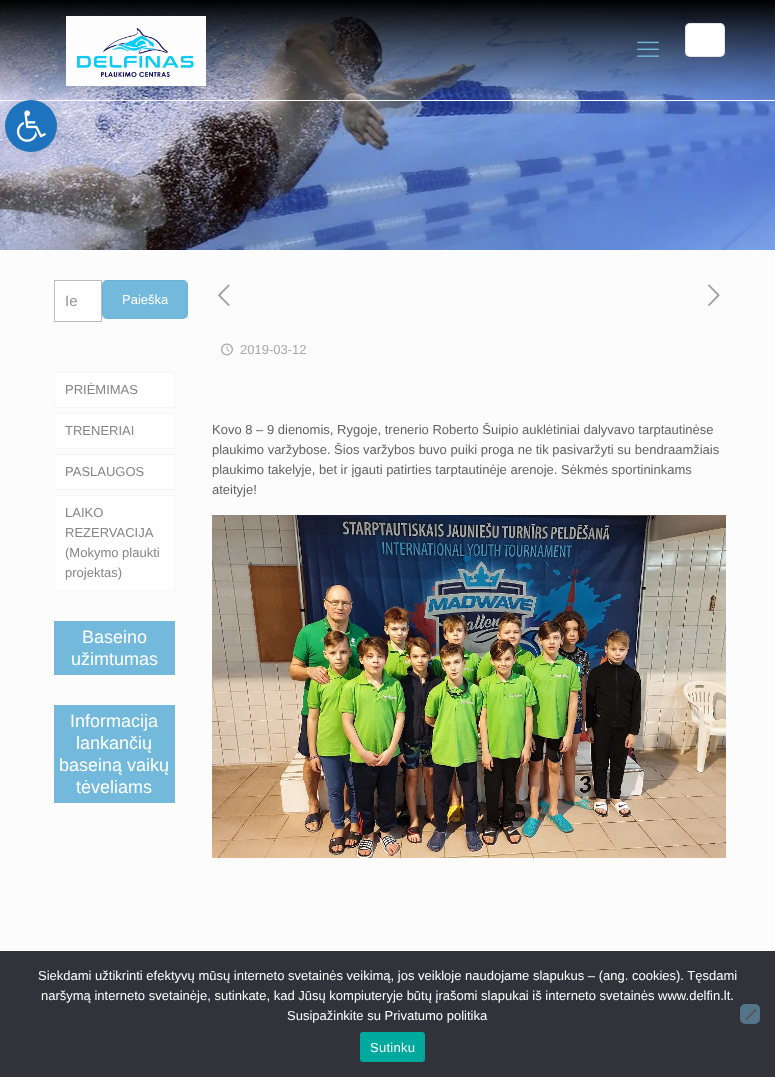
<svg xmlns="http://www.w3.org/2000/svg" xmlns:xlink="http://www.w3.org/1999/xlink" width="775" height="1077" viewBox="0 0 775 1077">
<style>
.cls-1{font:15px Liberation Sans;fill:#929292}
.cls-2{font:13px Liberation Sans;fill:#ffffff}
.cls-3{font:13px Liberation Sans;fill:#858585}
.cls-4{font:18px Liberation Sans;fill:#ffffff}
.cls-5{font:13px Liberation Sans;fill:#a8a8a8}
.cls-6{font:13px Liberation Sans;fill:#626262}
.cls-7{font:13px Liberation Sans;letter-spacing:0.25px;fill:#ffffff}
</style>
<rect width="100%" height="100%" fill="#fcfcfc"/>
<image xlink:href="image1.png" x="0" y="0" width="775" height="250"/>
<rect fill="#ffffff" x="0" y="100" width="775" height="1"/>
<image xlink:href="image2.png" x="66" y="16" width="140" height="70"/>
<rect fill="#000000" fill-opacity="0.1" filter="blur(5px)" x="5" y="100" width="52" height="52" rx="26"/>
<circle fill="#1e73be" cx="31" cy="126" r="26"/>
<image xlink:href="image0.png" x="16" y="110" width="30" height="32"/>
<image xlink:href="image3.png" x="637" y="41" width="22" height="16"/>
<rect fill="#ffffff" x="685" y="23" width="40" height="34" rx="5"/>
<rect fill="none" stroke="#000000" stroke-opacity="0.1" x="685.5" y="23.5" width="39" height="33" rx="4.5"/>
<rect fill="#ffffff" stroke="#bcbcbc" x="54.5" y="280.5" width="47" height="41"/>
<rect fill="#73b9db" x="102" y="280" width="86" height="39" rx="5"/>
<rect fill="none" stroke="#000000" stroke-opacity="0.03" x="102.5" y="280.5" width="85" height="38"/>
<rect fill="#ffffff" stroke="#f5f5f5" x="54.5" y="372.5" width="120" height="35"/>
<rect fill="#ffffff" stroke="#f5f5f5" x="54.5" y="413.5" width="120" height="35"/>
<rect fill="#ffffff" stroke="#f5f5f5" x="54.5" y="454.5" width="120" height="35"/>
<rect fill="#ffffff" stroke="#f5f5f5" x="54.5" y="495.5" width="120" height="95"/>
<rect fill="#73b9db" x="54" y="621" width="121" height="54"/>
<rect fill="#73b9db" x="54" y="705" width="121" height="98"/>
<image xlink:href="image4.png" x="218" y="284" width="12" height="22"/>
<image xlink:href="image5.png" x="708" y="284" width="12" height="22"/>
<image xlink:href="image6.png" x="221" y="343" width="12" height="13"/>
<image xlink:href="image7.png" x="212" y="515" width="514" height="343"/>
<rect fill="#32323a" x="0" y="951" width="775" height="126"/>
<rect fill="#53768b" x="740" y="1004" width="20" height="20" rx="5"/>
<rect fill="none" stroke="#19191d" stroke-opacity="0.03" x="740.5" y="1004.5" width="19" height="19"/>
<path fill="#59595d" d="M755.5 1008.5L757 1010L746.5 1020.5L745 1019Z"/>
<rect fill="#00a99d" x="360" y="1032" width="65" height="30" rx="3"/>
<text class="cls-1" x="65" y="306">Ie</text>
<text class="cls-2" x="122" y="304">Paieška</text>
<text class="cls-3" x="65" y="394">PRIĖMIMAS</text>
<text class="cls-3" x="65" y="435">TRENERIAI</text>
<text class="cls-3" x="65" y="476">PASLAUGOS</text>
<text class="cls-3"><tspan x="65" y="517">LAIKO</tspan><tspan x="65" y="537">REZERVACIJA</tspan><tspan x="65" y="557">(Mokymo plaukti</tspan><tspan x="65" y="577">projektas)</tspan></text>
<text class="cls-4" x="82" y="643">Baseino</text>
<text class="cls-4" x="71" y="665">užimtumas</text>
<text class="cls-4" x="70" y="727">Informacija</text>
<text class="cls-4" x="76" y="749">lankančių</text>
<text class="cls-4" x="59" y="771">baseiną vaikų</text>
<text class="cls-4" x="76" y="793">tėveliams</text>
<text class="cls-5" x="240" y="354">2019-03-12</text>
<text class="cls-6"><tspan x="212" y="434">Kovo 8 – 9 dienomis, Rygoje, trenerio Roberto Šuipio auklėtiniai dalyvavo tarptautinėse</tspan><tspan x="212" y="454">plaukimo varžybose. Šios varžybos buvo puiki proga ne tik pasivaržyti su bendraamžiais</tspan><tspan x="212" y="474">plaukimo takelyje, bet ir įgauti patirties tarptautinėje arenoje. Sėkmės sportininkams</tspan><tspan x="212" y="494">ateityje!</tspan></text>
<text class="cls-2" x="38" y="980">Siekdami užtikrinti efektyvų mūsų interneto svetainės veikimą, jos veikloje naudojame slapukus – (ang. cookies). Tęsdami</text>
<text class="cls-2" x="41" y="1000">naršymą interneto svetainėje, sutinkate, kad Jūsų kompiuteryje būtų įrašomi slapukai iš interneto svetainės www.delfin.lt.</text>
<text class="cls-2" x="287" y="1020">Susipažinkite su Privatumo politika</text>
<text class="cls-7" x="370" y="1052">Sutinku</text>
</svg>
